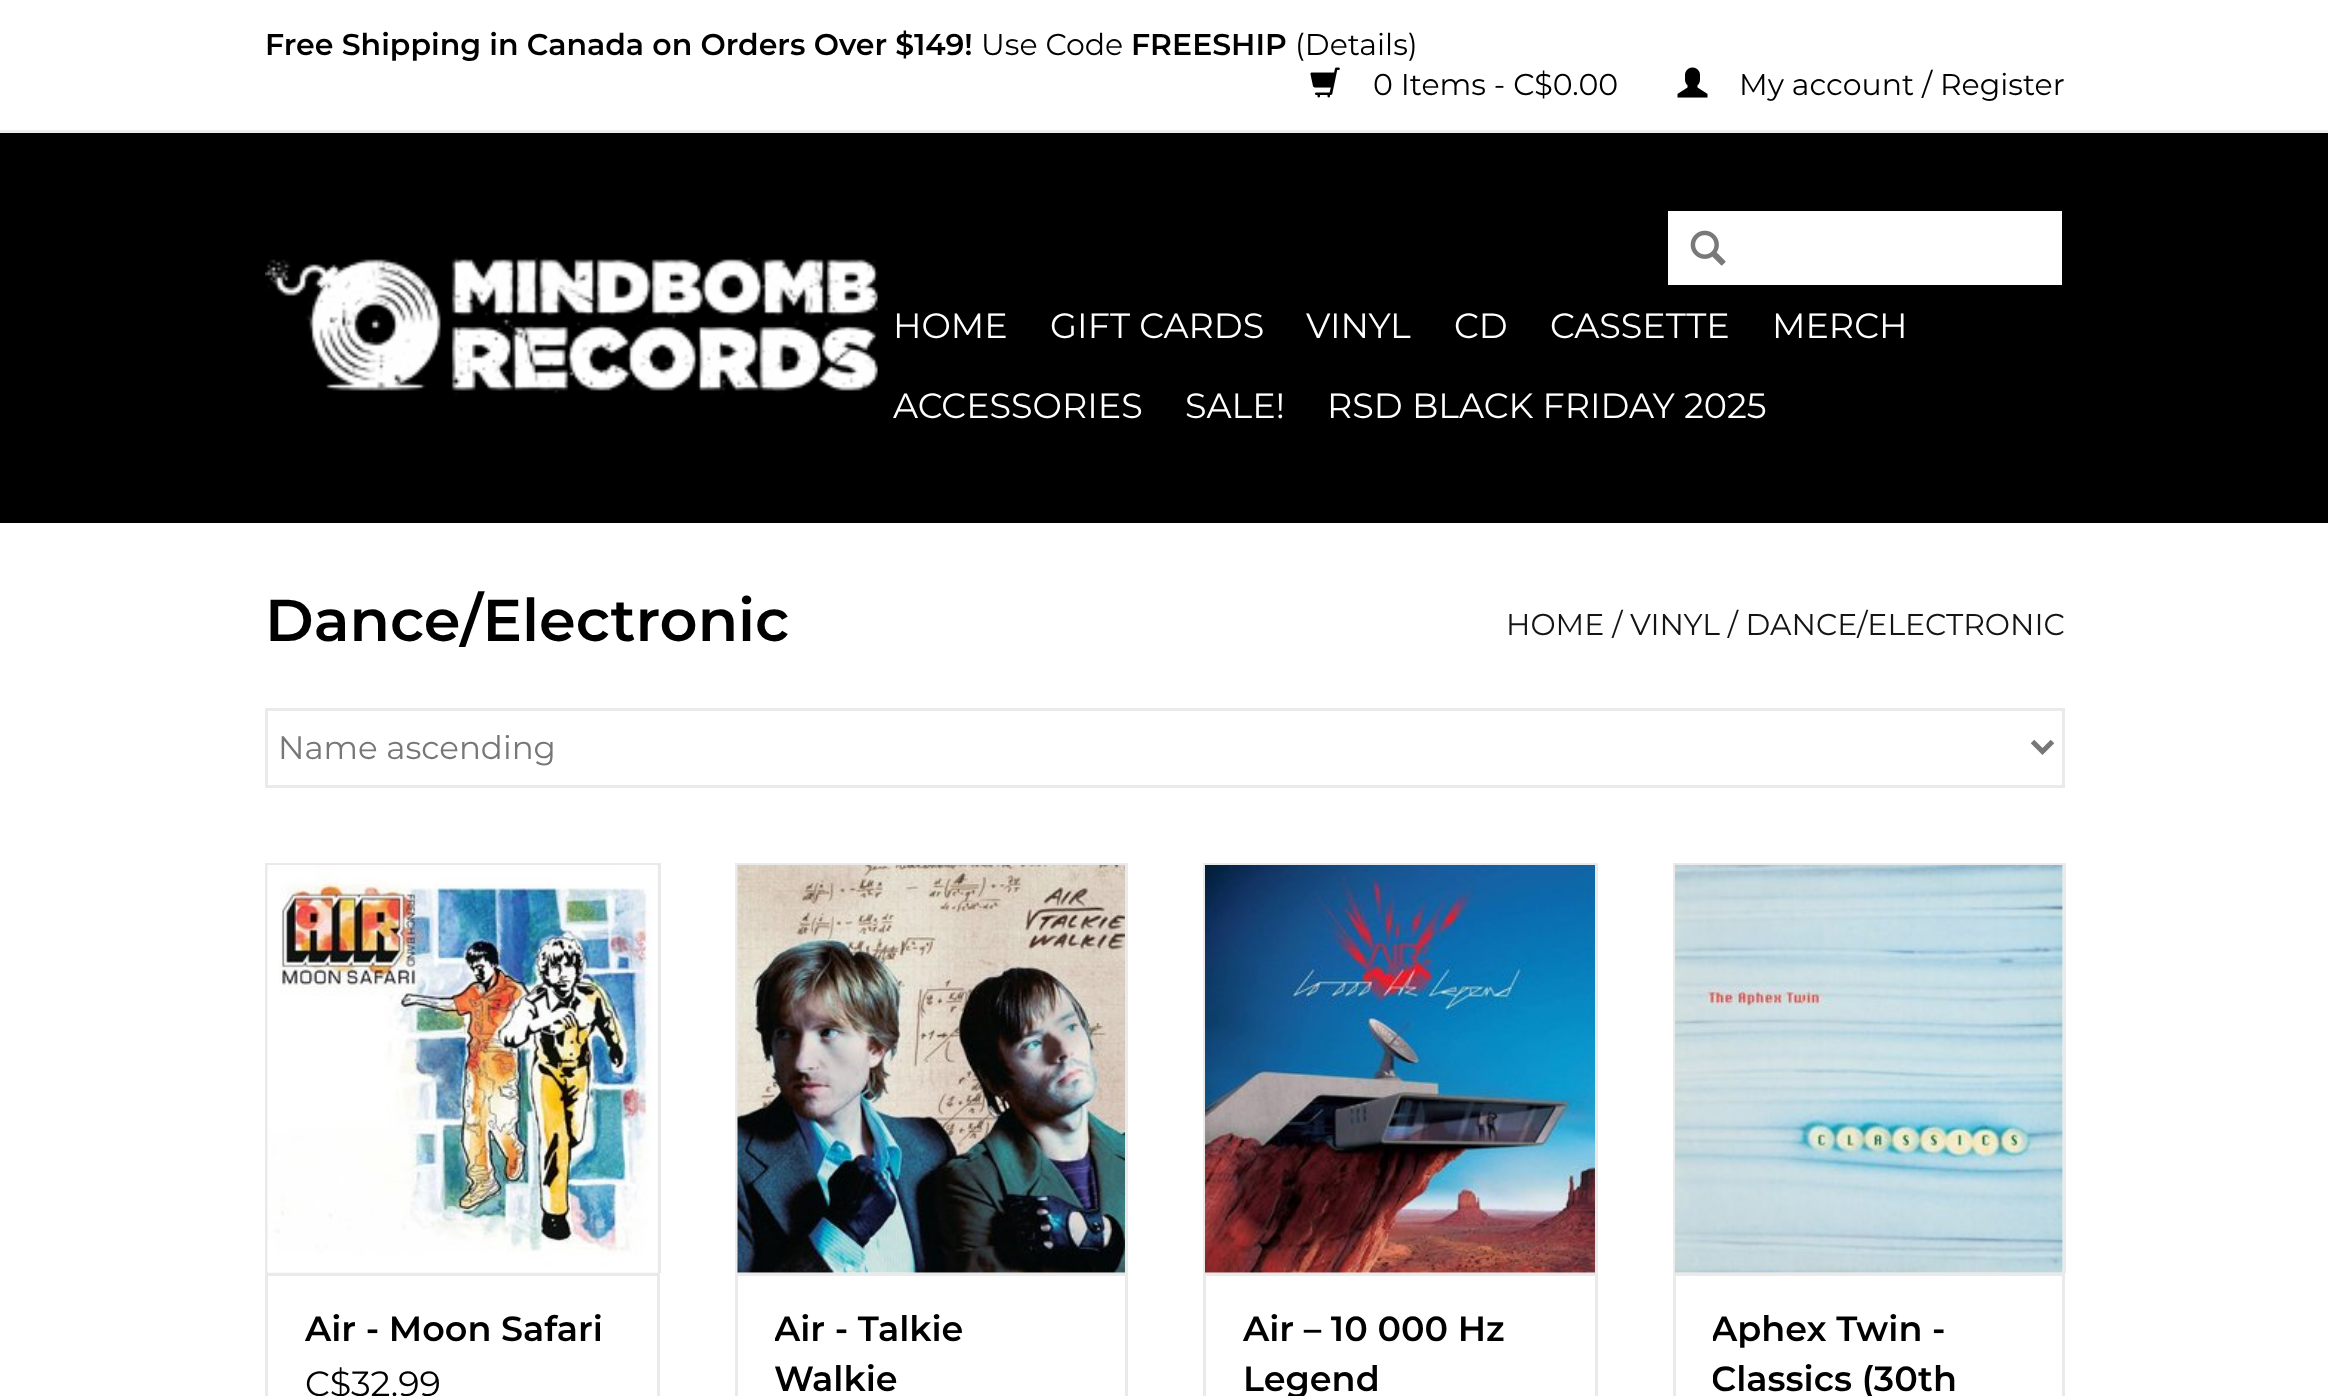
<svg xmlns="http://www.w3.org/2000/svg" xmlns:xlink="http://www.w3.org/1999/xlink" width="2328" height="1396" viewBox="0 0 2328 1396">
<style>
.cls-1{font:600 30px Montserrat;fill:#000000}
.cls-2{font:30px Montserrat;fill:#000000}
.cls-3{font:35px Montserrat;fill:#ffffff}
.cls-4{font:600 59px Montserrat;fill:#000000}
.cls-5{font:30px Montserrat;fill:#141414}
.cls-6{font:32.5px Montserrat;fill:#777777}
.cls-7{font:600 35px Montserrat;fill:#000000}
.cls-8{font:35px Montserrat;fill:#000000}
</style>
<defs>
<clipPath id="clip1"><rect x="775" y="1303" width="313" height="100"/></clipPath>
<clipPath id="clip2"><rect x="1713" y="1303" width="312" height="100"/></clipPath>
</defs>
<rect width="100%" height="100%" fill="#ffffff"/>
<rect fill="#000000" x="0" y="133" width="2328" height="390"/>
<rect fill="#ededed" x="0" y="130" width="2328" height="3"/>
<image xlink:href="image0.png" x="1310" y="67" width="30" height="31"/>
<image xlink:href="image1.png" x="1677" y="67" width="31" height="31"/>
<image xlink:href="image2.png" x="265" y="257" width="613" height="138"/>
<rect fill="#ffffff" x="1668" y="211" width="394" height="74"/>
<image xlink:href="image3.png" x="1690" y="230" width="36" height="36"/>
<rect fill="none" stroke="#eaeaea" stroke-width="3" x="266.5" y="709.5" width="1797" height="77"/>
<path fill="none" stroke="#777777" stroke-width="5" d="M2032.5 741.5L2042.5 751.5L2052.5 741.5"/>
<rect fill="#f7f7f7" x="268" y="866" width="390" height="407"/>
<rect fill="#eaeaea" x="265" y="863" width="395" height="3"/>
<rect fill="#eaeaea" x="658" y="863" width="3" height="410"/>
<rect fill="#eaeaea" x="265" y="863" width="3" height="410"/>
<image xlink:href="image4.png" x="267" y="865" width="391" height="408"/>
<rect fill="none" stroke="#eaeaea" stroke-width="3" x="266.5" y="1274.5" width="392" height="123"/>
<rect fill="#f7f7f7" x="738" y="1272" width="387" height="1"/>
<rect fill="#eaeaea" x="735" y="863" width="393" height="2"/>
<rect fill="#eaeaea" x="1125" y="863" width="3" height="410"/>
<rect fill="#eaeaea" x="735" y="863" width="3" height="410"/>
<image xlink:href="image5.png" x="737" y="865" width="388" height="408"/>
<rect fill="none" stroke="#eaeaea" stroke-width="3" x="736.5" y="1274.5" width="390" height="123"/>
<rect fill="#f7f7f7" x="1206" y="1272" width="389" height="1"/>
<rect fill="#eaeaea" x="1203" y="863" width="395" height="2"/>
<rect fill="#eaeaea" x="1595" y="863" width="3" height="410"/>
<rect fill="#eaeaea" x="1203" y="863" width="3" height="410"/>
<image xlink:href="image6.png" x="1205" y="865" width="390" height="408"/>
<rect fill="none" stroke="#eaeaea" stroke-width="3" x="1204.5" y="1274.5" width="392" height="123"/>
<rect fill="#f7f7f7" x="1676" y="866" width="387" height="407"/>
<rect fill="#eaeaea" x="1673" y="863" width="392" height="3"/>
<rect fill="#eaeaea" x="2063" y="863" width="3" height="410"/>
<rect fill="#eaeaea" x="1673" y="863" width="3" height="410"/>
<image xlink:href="image7.png" x="1675" y="865" width="388" height="408"/>
<rect fill="none" stroke="#eaeaea" stroke-width="3" x="1674.5" y="1274.5" width="389" height="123"/>
<text class="cls-1" x="265" y="55">Free Shipping in Canada on Orders Over $149!</text>
<text class="cls-2" x="981" y="55">Use Code</text>
<text class="cls-1" x="1131" y="55">FREESHIP</text>
<text class="cls-2" x="1295" y="55">(Details)</text>
<text class="cls-2" x="1373" y="95">0 Items - C$0.00</text>
<text class="cls-2" x="1739" y="95">My account / Register</text>
<text class="cls-3" x="893" y="338">HOME</text>
<text class="cls-3" x="1050" y="338">GIFT CARDS</text>
<text class="cls-3" x="1306" y="338">VINYL</text>
<text class="cls-3" x="1454" y="338">CD</text>
<text class="cls-3" x="1550" y="338">CASSETTE</text>
<text class="cls-3" x="1772" y="338">MERCH</text>
<text class="cls-3" x="893" y="418">ACCESSORIES</text>
<text class="cls-3" x="1185" y="418">SALE!</text>
<text class="cls-3" x="1327" y="418">RSD BLACK FRIDAY 2025</text>
<text class="cls-4" x="265" y="641">Dance/Electronic</text>
<text class="cls-5" x="1506" y="635">HOME / VINYL / DANCE/ELECTRONIC</text>
<text class="cls-6" x="278" y="759">Name ascending</text>
<text class="cls-7" x="305" y="1341">Air - Moon Safari</text>
<text class="cls-8" x="305" y="1396">C$32.99</text>
<g clip-path="url(#clip1)">
<text class="cls-7" x="774" y="1341">Air - Talkie</text>
</g>
<text class="cls-7" x="774" y="1391">Walkie</text>
<text class="cls-7"><tspan x="1243" y="1341">Air – 10 000 Hz</tspan><tspan x="1243" y="1391">Legend</tspan></text>
<g clip-path="url(#clip2)">
<text class="cls-7"><tspan x="1711" y="1341">Aphex Twin -</tspan><tspan x="1711" y="1391">Classics (30th</tspan></text>
</g>
</svg>
